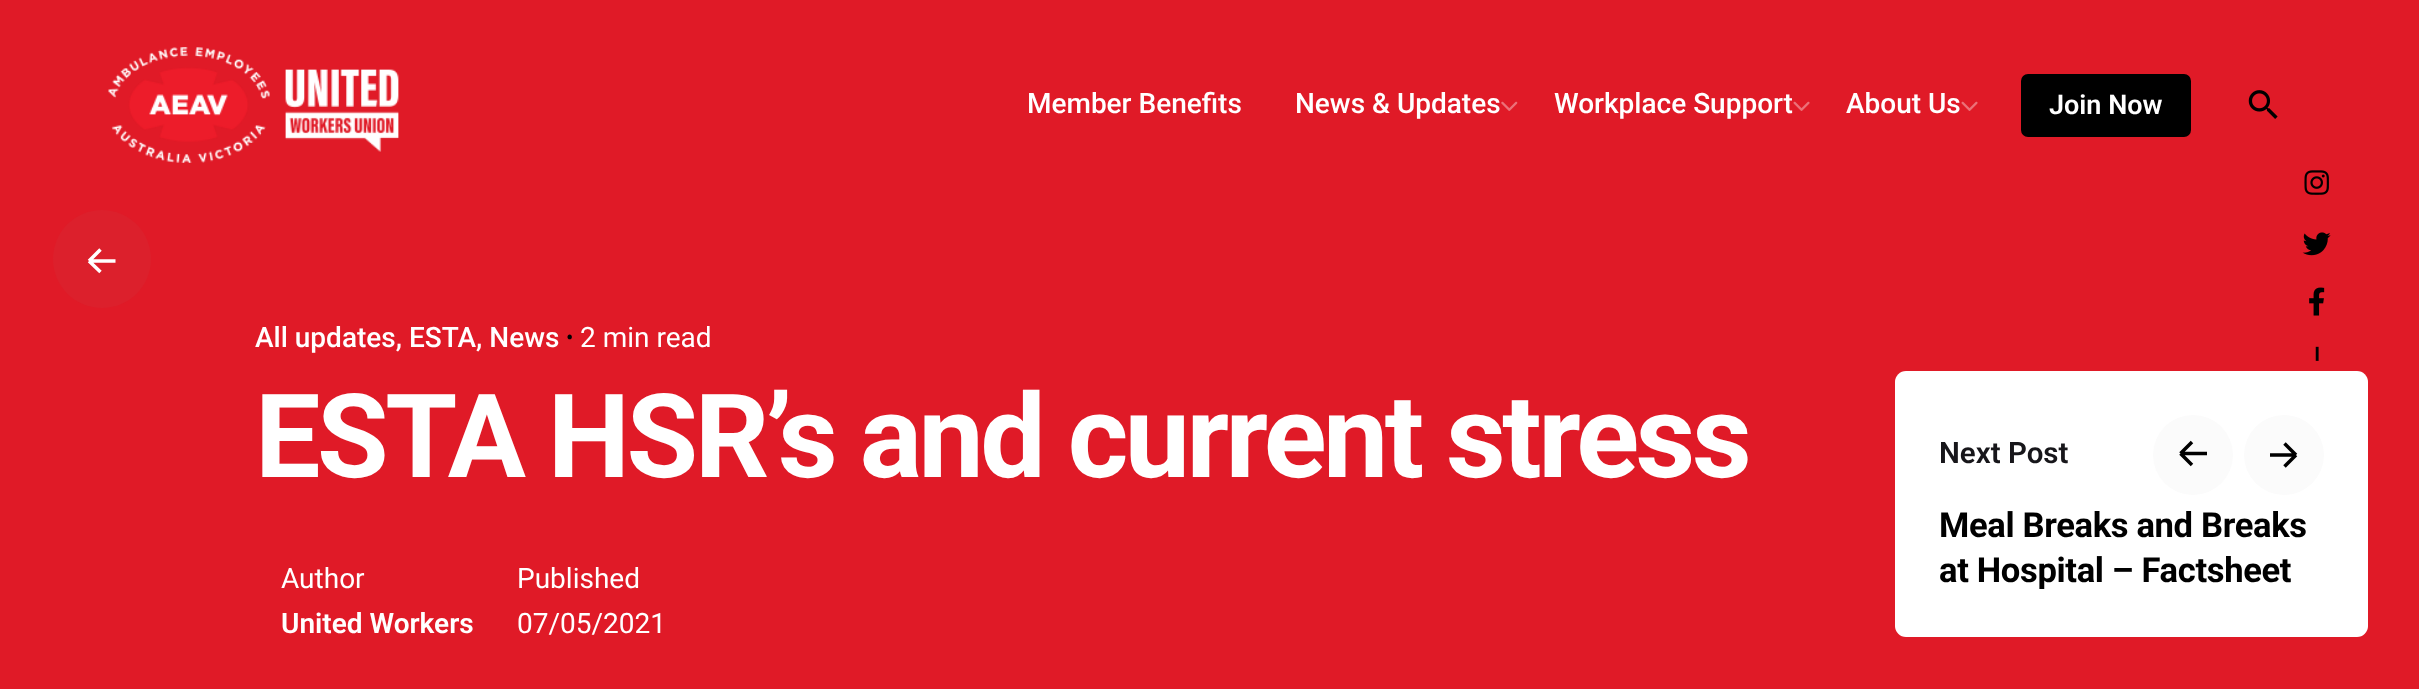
<svg xmlns="http://www.w3.org/2000/svg" xmlns:xlink="http://www.w3.org/1999/xlink" width="2419" height="689" viewBox="0 0 2419 689">
<style>
.cls-1{font:500 28px Roboto;fill:#ffffff}
.cls-2{font:600 27px Roboto;fill:#ffffff}
.cls-3{font:22px Roboto;fill:#000000}
.cls-4{font:28px Roboto;fill:#ffffff}
.cls-5{font:bold 116.4px Roboto;letter-spacing:-3.5px;fill:#ffffff}
.cls-6{font:600 28px Roboto;fill:#ffffff}
.cls-7{font:600 29.5px Roboto;fill:#17161a}
.cls-8{font:bold 34.6px Roboto;letter-spacing:-0.35px;fill:#000000}
.cls-9{font:600 28px Roboto;fill:#000000}
</style>
<rect width="100%" height="100%" fill="#e01a27"/>
<image xlink:href="image0.png" x="108" y="47" width="291" height="116"/>
<image xlink:href="image1.png" x="1501" y="101" width="17" height="10"/>
<image xlink:href="image2.png" x="1793" y="101" width="17" height="10"/>
<image xlink:href="image2.png" x="1961" y="101" width="17" height="10"/>
<rect fill="#000000" stroke="#000000" stroke-width="2" x="2022" y="75" width="168" height="61" rx="6"/>
<image xlink:href="image3.png" x="2248" y="90" width="30" height="29"/>
<circle fill="#dc202c" cx="102" cy="259" r="49"/>
<path fill="none" stroke="#ffffff" stroke-width="3.5" stroke-linejoin="round" d="M115.5 261H89M89 261L100.5 272M89 261L100.5 249.5"/>
<rect fill="#ffffff" x="1895" y="371" width="473" height="266" rx="11"/>
<circle fill="#fbfbfb" cx="2193" cy="455" r="40"/>
<path fill="none" stroke="#000000" stroke-width="3.5" stroke-linejoin="round" d="M2207 453.5H2180.5M2180.5 453.5L2192 465M2180.5 453.5L2192 442"/>
<circle fill="#fbfbfb" cx="2284" cy="455" r="40"/>
<path fill="none" stroke="#000000" stroke-width="3.5" stroke-linejoin="round" d="M2270 455H2296M2296 455L2284.5 443.5M2296 455L2284.5 466.5"/>
<image xlink:href="image4.png" x="2304" y="170" width="25" height="25"/>
<image xlink:href="image5.png" x="2302" y="232" width="29" height="24"/>
<image xlink:href="image6.png" x="2309" y="287" width="16" height="29"/>
<text class="cls-1" x="1027" y="113">Member Benefits</text>
<text class="cls-1" x="1295" y="113">News &amp; Updates</text>
<text class="cls-1" x="1554" y="113">Workplace Support</text>
<text class="cls-1" x="1846" y="113">About Us</text>
<text class="cls-2" x="2049" y="114">Join Now</text>
<text class="cls-1" x="255" y="347">All updates, ESTA, News</text>
<text class="cls-3" x="566" y="345">•</text>
<text class="cls-4" x="580" y="347">2 min read</text>
<text class="cls-5" x="255" y="477">ESTA HSR’s and current stress</text>
<text class="cls-4" x="281" y="588">Author</text>
<text class="cls-6" x="281" y="633">United Workers</text>
<text class="cls-4"><tspan x="517" y="588">Published</tspan><tspan x="517" y="633">07/05/2021</tspan></text>
<text class="cls-7" x="1939" y="463">Next Post</text>
<text class="cls-8"><tspan x="1939" y="537">Meal Breaks and Breaks</tspan><tspan x="1939" y="582">at Hospital – Factsheet</tspan></text>
<text class="cls-9" x="2327" y="363" transform="rotate(-90 2327 363)">–</text>
</svg>
